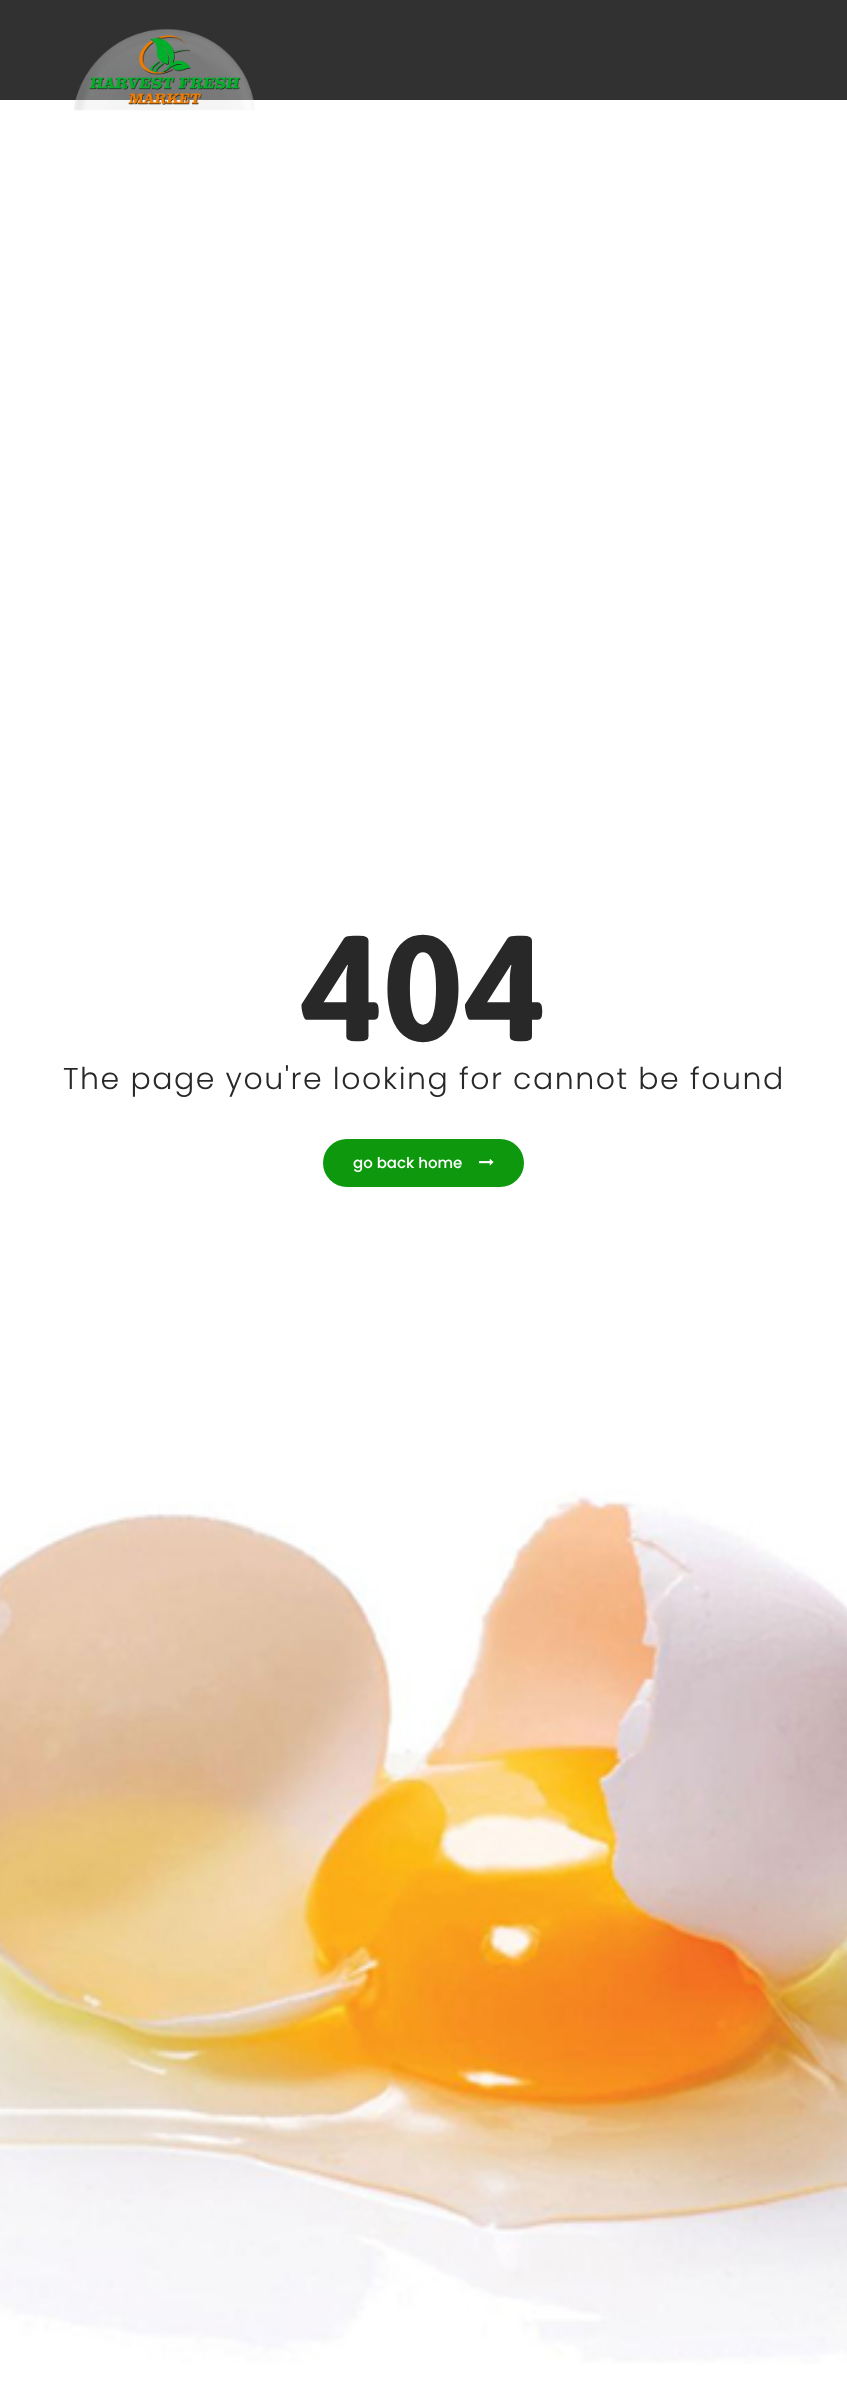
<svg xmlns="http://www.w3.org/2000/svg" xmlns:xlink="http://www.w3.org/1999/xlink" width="847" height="2386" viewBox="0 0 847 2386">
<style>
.cls-1{font:bold 150px Asap;letter-spacing:1.5px;fill:#282828}
.cls-2{font:300 30px Poppins;letter-spacing:1.5px;fill:#282828}
.cls-3{font:500 15px Poppins;fill:#ffffff}
</style>
<rect width="100%" height="100%" fill="#ffffff"/>
<rect fill="#313131" x="0" y="0" width="847" height="100"/>
<image xlink:href="image0.png" x="74" y="29" width="181" height="82"/>
<image xlink:href="image1.png" x="0" y="1490" width="847" height="874"/>
<rect fill="#0d980d" x="323" y="1139" width="201" height="48" rx="24"/>
<image xlink:href="image2.png" x="479" y="1159" width="15" height="7"/>
<text class="cls-1" x="301" y="1041">404</text>
<text class="cls-2" x="63" y="1089">The page you're looking for cannot be found</text>
<text class="cls-3" x="353" y="1168">go back home</text>
</svg>
